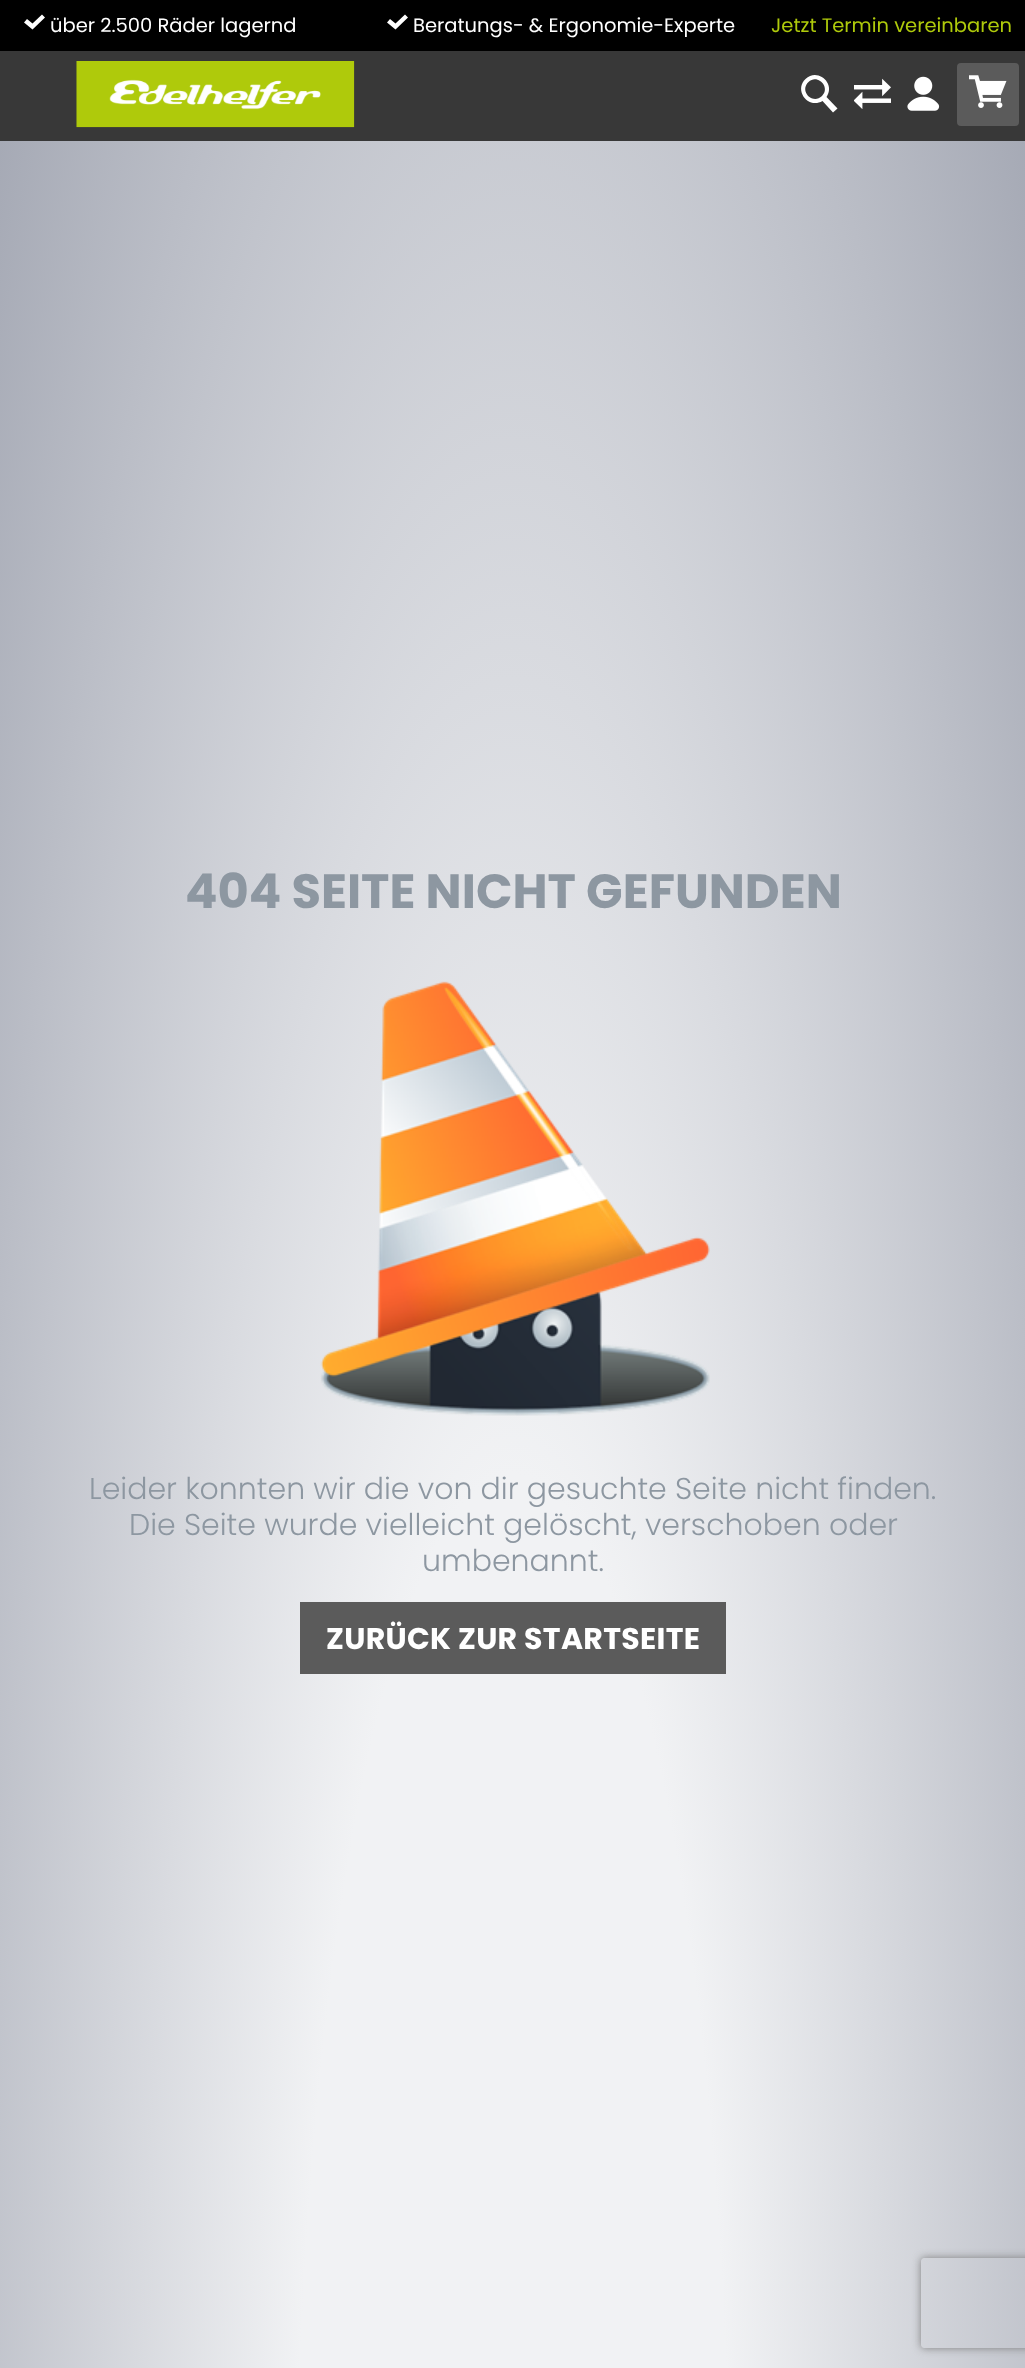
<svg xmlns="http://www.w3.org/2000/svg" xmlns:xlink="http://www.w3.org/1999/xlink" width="1025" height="2368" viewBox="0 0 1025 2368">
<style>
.cls-1{font:19.5px Poppins;fill:#ffffff}
.cls-2{font:19.5px Poppins;fill:#afca0b}
.cls-3{font:bold 48px Poppins;fill:#8d97a1}
.cls-4{font:300 30px Poppins;fill:#8d97a1}
.cls-5{font:bold 30px Poppins;letter-spacing:0.3px;fill:#ffffff}
</style>
<defs>
<radialGradient id="g1" gradientUnits="userSpaceOnUse" cx="0" cy="0" r="1" gradientTransform="matrix(725 0 0 3744 513 2598)"><stop offset="0.3" stop-color="#f1f2f4"/><stop offset="1" stop-color="#a2a6b2"/></radialGradient>
<clipPath id="clip1"><path d="M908 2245H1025V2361H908ZM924 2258H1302C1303.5 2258 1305 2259.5 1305 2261V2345C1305 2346.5 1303.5 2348 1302 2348H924C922.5 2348 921 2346.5 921 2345V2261C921 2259.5 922.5 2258 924 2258Z" clip-rule="evenodd"/></clipPath>
</defs>
<rect width="100%" height="100%" fill="#ffffff"/>
<rect fill="url(#g1)" x="0" y="141" width="1025" height="2227"/>
<rect fill="#383838" x="0" y="51" width="1025" height="90"/>
<rect fill="#000000" x="0" y="0" width="1025" height="51"/>
<path fill="#ffffff" d="M27 19L32.5 23.5L42 14.5L45 17.5L32.5 29.5L24 22.5Z"/>
<path fill="#ffffff" d="M390 19L395.5 23.5L405 14.5L408 17.5L395.5 29.5L387 22.5Z"/>
<image xlink:href="image0.png" x="76" y="61" width="279" height="67"/>
<path fill="#ffffff" d="M833 112.5L822.5 101C808.5 109.5 793.5 90.5 805.5 79C817.5 67.5 836 83.5 826.5 97L837.5 108.5ZM808.5 82C799 91 812.5 105 822 96C831 87.5 817.5 73.5 808.5 82Z"/>
<image xlink:href="image1.png" x="854" y="78" width="37" height="31"/>
<image xlink:href="image2.png" x="907" y="76" width="33" height="35"/>
<rect fill="#5b5b5b" x="957" y="63" width="62" height="63" rx="4"/>
<image xlink:href="image3.png" x="969" y="75" width="38" height="33"/>
<image xlink:href="image4.png" x="320" y="981" width="390" height="435"/>
<rect fill="#5b5b5b" x="300" y="1602" width="426" height="72"/>
<g clip-path="url(#clip1)">
<rect fill="#808080" filter="blur(4px)" x="921" y="2258" width="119" height="90" rx="3"/>
</g>
<text class="cls-1" x="50" y="32">über 2.500 Räder lagernd</text>
<text class="cls-1" x="413" y="32">Beratungs- &amp; Ergonomie-Experte</text>
<text class="cls-2" x="771" y="32">Jetzt Termin vereinbaren</text>
<text class="cls-3" x="185" y="908">404 SEITE NICHT GEFUNDEN</text>
<text class="cls-4" x="89" y="1499">Leider konnten wir die von dir gesuchte Seite nicht finden.</text>
<text class="cls-4" x="129" y="1535">Die Seite wurde vielleicht gelöscht, verschoben oder</text>
<text class="cls-4" x="422" y="1571">umbenannt.</text>
<text class="cls-5" x="326" y="1649">ZURÜCK ZUR STARTSEITE</text>
</svg>
